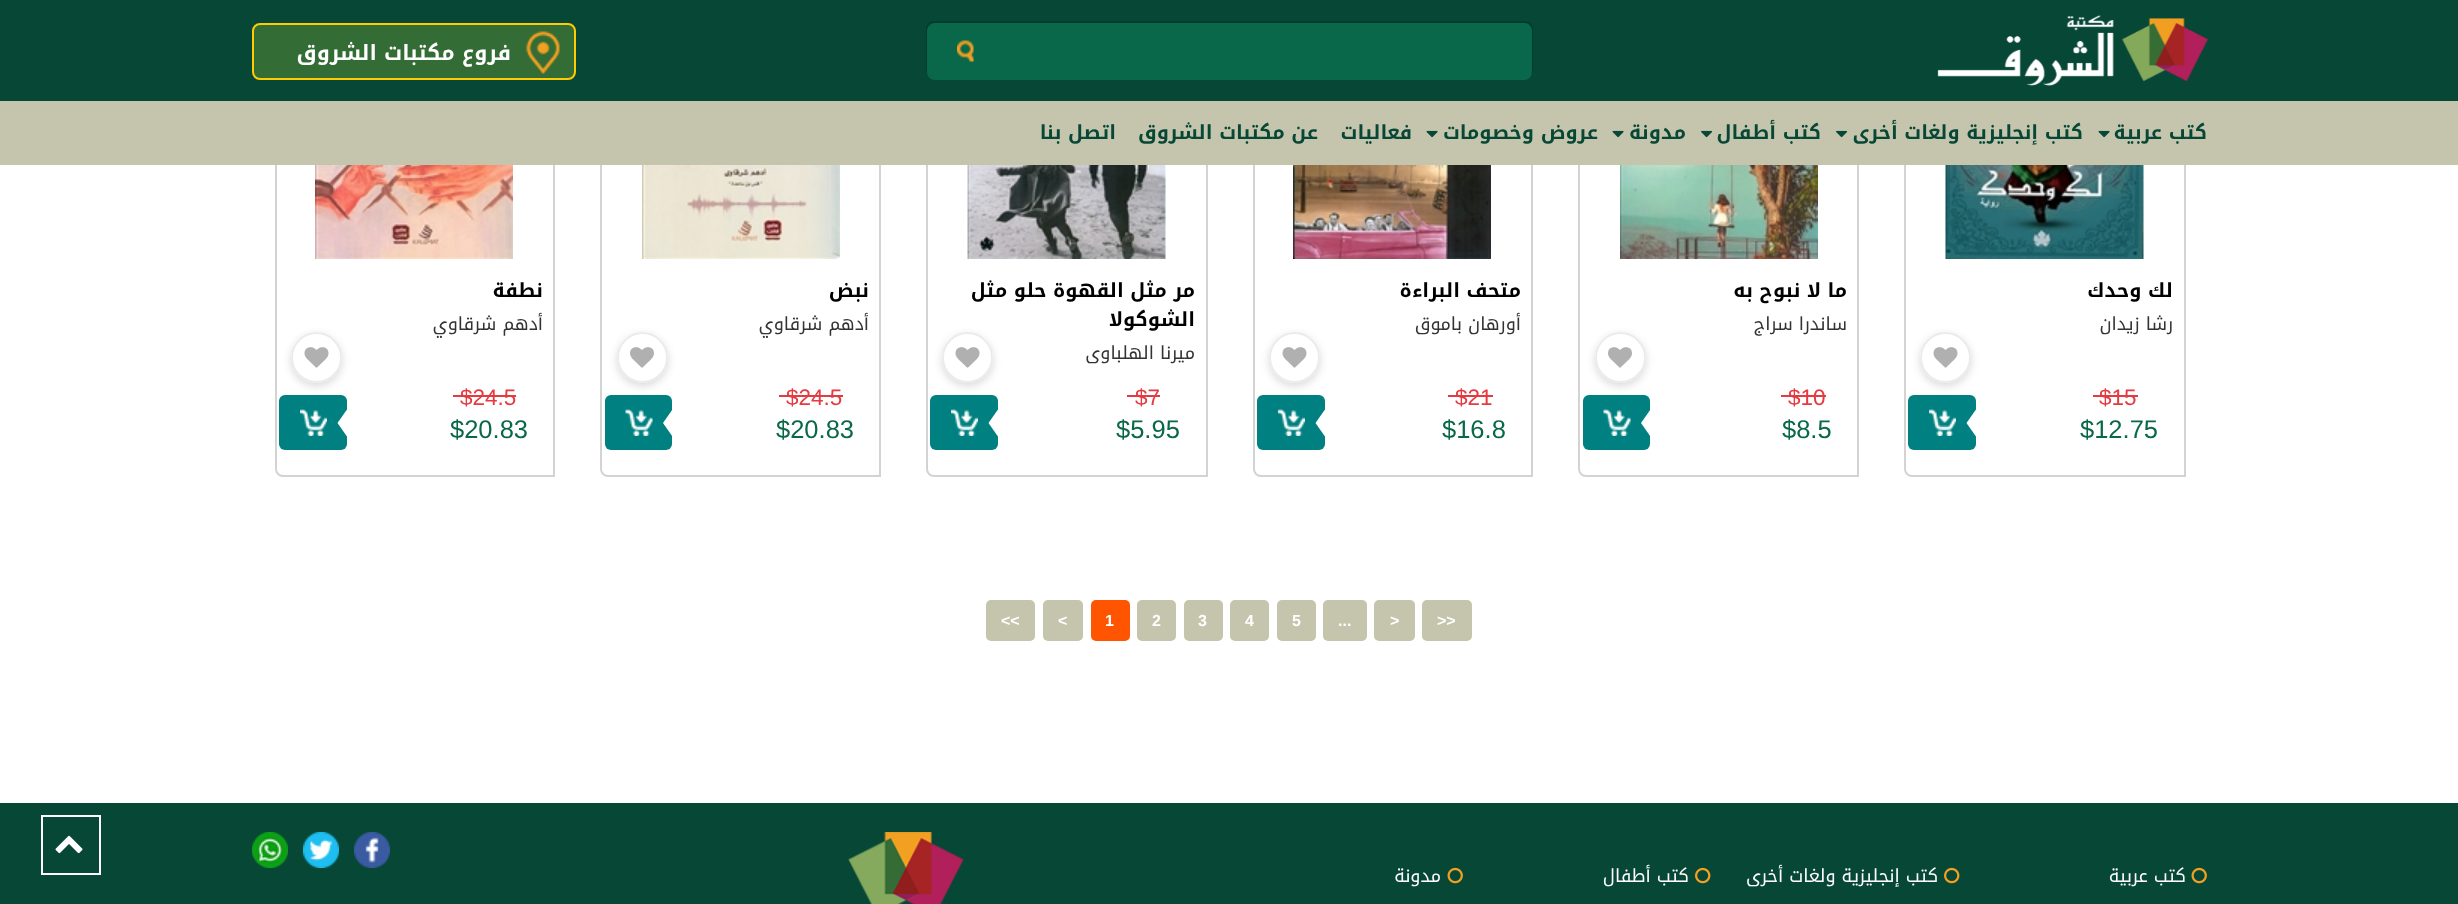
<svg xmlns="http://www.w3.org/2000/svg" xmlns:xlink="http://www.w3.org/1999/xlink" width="2458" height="904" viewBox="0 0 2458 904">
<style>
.cls-1{font:bold 21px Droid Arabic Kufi;direction:rtl;fill:#ffffff}
.cls-2{font:bold 19.5px Droid Arabic Kufi;direction:rtl;fill:#074736}
.cls-3{font:bold 19.5px Droid Arabic Kufi;direction:rtl;fill:#000000}
.cls-4{font:18px Droid Arabic Kufi;direction:rtl;fill:#333333}
.cls-5{font:22.5px Liberation Sans;fill:#e43a41}
.cls-6{font:25.5px Liberation Sans;fill:#09684a}
.cls-7{font:bold 16px Liberation Sans;fill:#ffffff}
.cls-8{font:18px Droid Arabic Kufi;direction:rtl;fill:#ffffff}
</style>
<defs>
<clipPath id="clip1"><path d="M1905 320H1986V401H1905ZM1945.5 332C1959.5 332 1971 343.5 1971 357.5C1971 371.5 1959.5 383 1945.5 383C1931.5 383 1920 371.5 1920 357.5C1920 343.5 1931.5 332 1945.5 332Z" clip-rule="evenodd"/></clipPath>
<clipPath id="clip2"><path d="M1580 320H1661V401H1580ZM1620.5 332C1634.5 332 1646 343.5 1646 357.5C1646 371.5 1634.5 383 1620.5 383C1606.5 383 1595 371.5 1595 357.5C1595 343.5 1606.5 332 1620.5 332Z" clip-rule="evenodd"/></clipPath>
<clipPath id="clip3"><path d="M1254 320H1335V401H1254ZM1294.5 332C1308.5 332 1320 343.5 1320 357.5C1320 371.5 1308.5 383 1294.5 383C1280.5 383 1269 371.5 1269 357.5C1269 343.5 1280.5 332 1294.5 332Z" clip-rule="evenodd"/></clipPath>
<clipPath id="clip4"><path d="M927 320H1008V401H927ZM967.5 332C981.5 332 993 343.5 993 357.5C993 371.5 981.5 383 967.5 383C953.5 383 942 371.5 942 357.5C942 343.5 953.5 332 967.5 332Z" clip-rule="evenodd"/></clipPath>
<clipPath id="clip5"><path d="M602 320H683V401H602ZM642.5 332C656.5 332 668 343.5 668 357.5C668 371.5 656.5 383 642.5 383C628.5 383 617 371.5 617 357.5C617 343.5 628.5 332 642.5 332Z" clip-rule="evenodd"/></clipPath>
<clipPath id="clip6"><path d="M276 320H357V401H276ZM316.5 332C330.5 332 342 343.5 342 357.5C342 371.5 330.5 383 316.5 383C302.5 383 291 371.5 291 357.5C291 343.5 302.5 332 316.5 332Z" clip-rule="evenodd"/></clipPath>
</defs>
<rect width="100%" height="100%" fill="#ffffff"/>
<path fill="none" stroke="#d3d3d3" stroke-width="2" d="M1905-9H2185V476H1912C1908 476 1905 473 1905 469Z"/>
<path fill="none" stroke="#d3d3d3" stroke-width="2" d="M1579-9H1858V476H1586C1582 476 1579 473 1579 469Z"/>
<path fill="none" stroke="#d3d3d3" stroke-width="2" d="M1254-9H1532V476H1261C1257 476 1254 473 1254 469Z"/>
<path fill="none" stroke="#d3d3d3" stroke-width="2" d="M927-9H1207V476H934C930 476 927 473 927 469Z"/>
<path fill="none" stroke="#d3d3d3" stroke-width="2" d="M601-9H880V476H608C604 476 601 473 601 469Z"/>
<path fill="none" stroke="#d3d3d3" stroke-width="2" d="M276-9H554V476H283C279 476 276 473 276 469Z"/>
<rect fill="#074736" x="0" y="0" width="2458" height="101"/>
<image xlink:href="image0.png" x="1937" y="15" width="271" height="71"/>
<rect fill="none" stroke="#023d2b" stroke-width="2" x="927" y="22" width="605" height="55" rx="7"/>
<path fill="#09684a" d="M945 23H1524C1528.5 23 1532 26.5 1532 31V72C1532 76.5 1528.5 80 1524 80H945Z"/>
<path fill="#09684a" d="M935 23H1002V80H935C930.5 80 927 76.5 927 72V31C927 26.5 930.5 23 935 23Z"/>
<image xlink:href="image1.png" x="957" y="40" width="17" height="22"/>
<rect fill="#346c35" stroke="#ffcc02" stroke-width="2" x="253" y="24" width="322" height="55" rx="7"/>
<image xlink:href="image2.png" x="526" y="31" width="34" height="43"/>
<rect fill="#c5c5ad" x="0" y="101" width="2458" height="64"/>
<image xlink:href="image3.png" x="2098" y="130" width="12" height="8"/>
<image xlink:href="image4.png" x="1836" y="130" width="12" height="8"/>
<image xlink:href="image4.png" x="1701" y="130" width="12" height="8"/>
<image xlink:href="image3.png" x="1612" y="130" width="12" height="8"/>
<image xlink:href="image3.png" x="1426" y="130" width="12" height="8"/>
<image xlink:href="image5.png" x="1945" y="165" width="199" height="94"/>
<rect fill="#008080" x="1908" y="395" width="68" height="55" rx="6"/>
<g clip-path="url(#clip1)">
<rect fill="#000000" fill-opacity="0.15" filter="blur(4.5px)" x="1920" y="335" width="51" height="51" rx="25.5"/>
</g>
<circle fill="#ffffff" fill-opacity="0.7" cx="1945.5" cy="357.5" r="25.5"/>
<circle fill="none" stroke="#000000" stroke-opacity="0.08" stroke-width="2" cx="1945.5" cy="357.5" r="24.5"/>
<image xlink:href="image6.png" x="1933" y="347" width="25" height="21"/>
<rect fill="#e43a41" x="2093" y="395" width="45" height="2"/>
<image xlink:href="image7.png" x="1929" y="409" width="27" height="27"/>
<path fill="#ffffff" d="M1977 408V438L1966.5 423Z"/>
<image xlink:href="image8.png" x="1620" y="165" width="198" height="94"/>
<rect fill="#008080" x="1583" y="395" width="67" height="55" rx="6"/>
<g clip-path="url(#clip2)">
<rect fill="#000000" fill-opacity="0.15" filter="blur(4.5px)" x="1595" y="335" width="51" height="51" rx="25.5"/>
</g>
<circle fill="#ffffff" fill-opacity="0.7" cx="1620.5" cy="357.5" r="25.5"/>
<circle fill="none" stroke="#000000" stroke-opacity="0.08" stroke-width="2" cx="1620.5" cy="357.5" r="24.5"/>
<image xlink:href="image9.png" x="1608" y="347" width="24" height="21"/>
<rect fill="#e43a41" x="1781" y="395" width="45" height="2"/>
<image xlink:href="image10.png" x="1603" y="409" width="28" height="27"/>
<path fill="#ffffff" d="M1651.5 408V438L1641 423Z"/>
<image xlink:href="image11.png" x="1293" y="165" width="198" height="94"/>
<rect fill="#008080" x="1257" y="395" width="68" height="55" rx="6"/>
<g clip-path="url(#clip3)">
<rect fill="#000000" fill-opacity="0.15" filter="blur(4.5px)" x="1269" y="335" width="51" height="51" rx="25.5"/>
</g>
<circle fill="#ffffff" fill-opacity="0.7" cx="1294.5" cy="357.5" r="25.5"/>
<circle fill="none" stroke="#000000" stroke-opacity="0.08" stroke-width="2" cx="1294.5" cy="357.5" r="24.5"/>
<image xlink:href="image6.png" x="1282" y="347" width="25" height="21"/>
<rect fill="#e43a41" x="1448" y="395" width="45" height="2"/>
<image xlink:href="image12.png" x="1278" y="409" width="27" height="27"/>
<path fill="#ffffff" d="M1326 408V438L1315.5 423Z"/>
<image xlink:href="image13.png" x="967" y="165" width="199" height="94"/>
<rect fill="#008080" x="930" y="395" width="68" height="55" rx="6"/>
<g clip-path="url(#clip4)">
<rect fill="#000000" fill-opacity="0.15" filter="blur(4.5px)" x="942" y="335" width="51" height="51" rx="25.5"/>
</g>
<circle fill="#ffffff" fill-opacity="0.7" cx="967.5" cy="357.5" r="25.5"/>
<circle fill="none" stroke="#000000" stroke-opacity="0.08" stroke-width="2" cx="967.5" cy="357.5" r="24.5"/>
<image xlink:href="image6.png" x="955" y="347" width="25" height="21"/>
<rect fill="#e43a41" x="1127" y="395" width="33" height="2"/>
<image xlink:href="image12.png" x="951" y="409" width="27" height="27"/>
<path fill="#ffffff" d="M999 408V438L988.5 423Z"/>
<image xlink:href="image14.png" x="642" y="165" width="198" height="94"/>
<rect fill="#008080" x="605" y="395" width="67" height="55" rx="6"/>
<g clip-path="url(#clip5)">
<rect fill="#000000" fill-opacity="0.15" filter="blur(4.5px)" x="617" y="335" width="51" height="51" rx="25.5"/>
</g>
<circle fill="#ffffff" fill-opacity="0.7" cx="642.5" cy="357.5" r="25.5"/>
<circle fill="none" stroke="#000000" stroke-opacity="0.08" stroke-width="2" cx="642.5" cy="357.5" r="24.5"/>
<image xlink:href="image9.png" x="630" y="347" width="24" height="21"/>
<rect fill="#e43a41" x="779" y="395" width="64" height="2"/>
<image xlink:href="image15.png" x="625" y="409" width="28" height="27"/>
<path fill="#ffffff" d="M673.5 408V438L663 423Z"/>
<image xlink:href="image16.png" x="315" y="165" width="198" height="94"/>
<rect fill="#008080" x="279" y="395" width="68" height="55" rx="6"/>
<g clip-path="url(#clip6)">
<rect fill="#000000" fill-opacity="0.15" filter="blur(4.5px)" x="291" y="335" width="51" height="51" rx="25.5"/>
</g>
<circle fill="#ffffff" fill-opacity="0.7" cx="316.5" cy="357.5" r="25.5"/>
<circle fill="none" stroke="#000000" stroke-opacity="0.08" stroke-width="2" cx="316.5" cy="357.5" r="24.5"/>
<image xlink:href="image6.png" x="304" y="347" width="25" height="21"/>
<rect fill="#e43a41" x="453" y="395" width="63" height="2"/>
<image xlink:href="image7.png" x="300" y="409" width="27" height="27"/>
<path fill="#ffffff" d="M348 408V438L337.5 423Z"/>
<rect fill="#c5c5ad" x="1422" y="600" width="50" height="41" rx="5"/>
<rect fill="#c5c5ad" x="1374" y="600" width="41" height="41" rx="5"/>
<rect fill="#c5c5ad" x="1323" y="600" width="44" height="41" rx="5"/>
<rect fill="#c5c5ad" x="1277" y="600" width="39" height="41" rx="5"/>
<rect fill="#c5c5ad" x="1230" y="600" width="39" height="41" rx="5"/>
<rect fill="#c5c5ad" x="1184" y="600" width="39" height="41" rx="5"/>
<rect fill="#c5c5ad" x="1137" y="600" width="39" height="41" rx="5"/>
<rect fill="#ff5400" x="1091" y="600" width="39" height="41" rx="5"/>
<rect fill="#c5c5ad" x="1043" y="600" width="40" height="41" rx="5"/>
<rect fill="#c5c5ad" x="986" y="600" width="49" height="41" rx="5"/>
<rect fill="#074736" x="0" y="803" width="2458" height="101"/>
<image xlink:href="image17.png" x="2191" y="867" width="16" height="17"/>
<image xlink:href="image18.png" x="1944" y="867" width="16" height="17"/>
<image xlink:href="image18.png" x="1695" y="867" width="16" height="17"/>
<image xlink:href="image17.png" x="1447" y="867" width="16" height="17"/>
<image xlink:href="image19.png" x="848" y="832" width="116" height="72"/>
<image xlink:href="image20.png" x="354" y="832" width="36" height="36"/>
<image xlink:href="image21.png" x="303" y="832" width="36" height="36"/>
<image xlink:href="image22.png" x="252" y="832" width="36" height="36"/>
<rect fill="none" stroke="#ffffff" stroke-width="2" x="42" y="816" width="58" height="58"/>
<image xlink:href="image23.png" x="55" y="835" width="28" height="19"/>
<text class="cls-1" x="511" y="60">فروع مكتبات الشروق</text>
<text class="cls-2" x="2207" y="139">كتب عربية</text>
<text class="cls-2" x="2083" y="139">كتب إنجليزية ولغات أخرى</text>
<text class="cls-2" x="1821" y="139">كتب أطفال</text>
<text class="cls-2" x="1686" y="139">مدونة</text>
<text class="cls-2" x="1598" y="139">عروض وخصومات</text>
<text class="cls-2" x="1412" y="139">فعاليات</text>
<text class="cls-2" x="1318" y="139">عن مكتبات الشروق</text>
<text class="cls-2" x="1116" y="139">اتصل بنا</text>
<text class="cls-3" x="2173" y="297">لك وحدك</text>
<text class="cls-4" x="2173" y="330">رشا زيدان</text>
<text class="cls-5" x="2099" y="405">$15</text>
<text class="cls-6" x="2080" y="438">$12.75</text>
<text class="cls-3" x="1847" y="297">ما لا نبوح به</text>
<text class="cls-4" x="1847" y="330">ساندرا سراج</text>
<text class="cls-5" x="1788" y="405">$10</text>
<text class="cls-6" x="1782" y="438">$8.5</text>
<text class="cls-3" x="1521" y="297">متحف البراءة</text>
<text class="cls-4" x="1521" y="330">أورهان باموق</text>
<text class="cls-5" x="1455" y="405">$21</text>
<text class="cls-6" x="1442" y="438">$16.8</text>
<text class="cls-3"><tspan x="1195" y="297">مر مثل القهوة حلو مثل</tspan><tspan x="1195" y="326">الشوكولا</tspan></text>
<text class="cls-4" x="1195" y="359">ميرنا الهلباوى</text>
<text class="cls-5" x="1135" y="405">$7</text>
<text class="cls-6" x="1116" y="438">$5.95</text>
<text class="cls-3" x="869" y="297">نبض</text>
<text class="cls-4" x="869" y="330">أدهم شرقاوي</text>
<text class="cls-5" x="786" y="405">$24.5</text>
<text class="cls-6" x="776" y="438">$20.83</text>
<text class="cls-3" x="543" y="297">نطفة</text>
<text class="cls-4" x="543" y="330">أدهم شرقاوي</text>
<text class="cls-5" x="460" y="405">$24.5</text>
<text class="cls-6" x="450" y="438">$20.83</text>
<text class="cls-7" x="1437" y="626">&gt;&gt;</text>
<text class="cls-7" x="1390" y="626">&gt;</text>
<text class="cls-7" x="1338" y="626">...</text>
<text class="cls-7" x="1292" y="626">5</text>
<text class="cls-7" x="1245" y="626">4</text>
<text class="cls-7" x="1198" y="626">3</text>
<text class="cls-7" x="1152" y="626">2</text>
<text class="cls-7" x="1105" y="626">1</text>
<text class="cls-7" x="1058" y="626">&lt;</text>
<text class="cls-7" x="1001" y="626">&lt;&lt;</text>
<text class="cls-8" x="2186" y="882">كتب عربية</text>
<text class="cls-8" x="1938" y="882">كتب إنجليزية ولغات أخرى</text>
<text class="cls-8" x="1689" y="882">كتب أطفال</text>
<text class="cls-8" x="1441" y="882">مدونة</text>
</svg>
